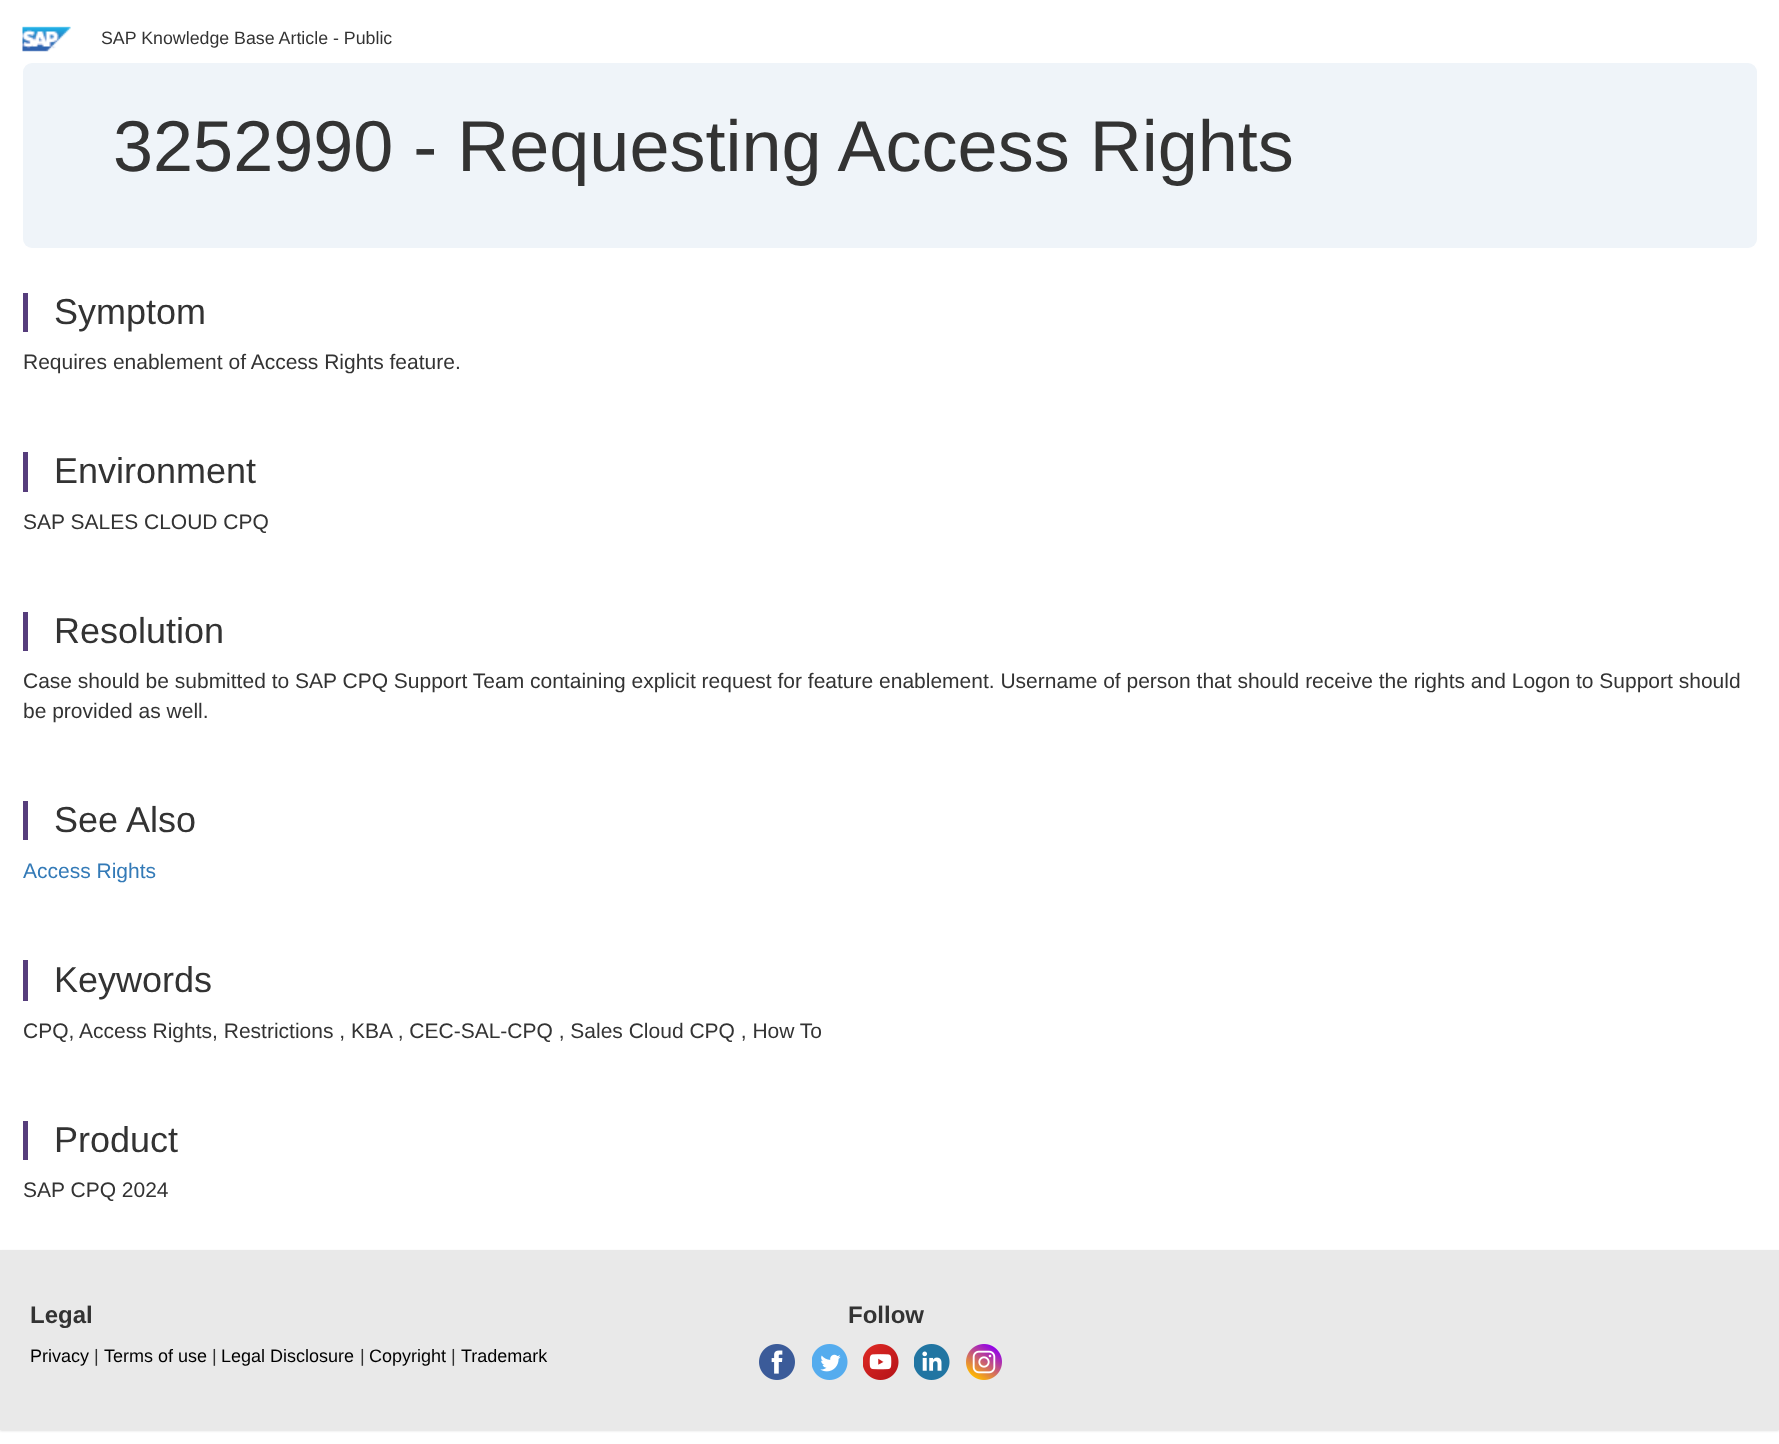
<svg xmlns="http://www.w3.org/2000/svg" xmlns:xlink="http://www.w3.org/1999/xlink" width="1779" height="1444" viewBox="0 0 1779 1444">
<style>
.cls-1{font:17.8px Liberation Sans;fill:#333333}
.cls-2{font:72px Liberation Sans;fill:#333333}
.cls-3{font:36px Liberation Sans;fill:#333333}
.cls-4{font:21px Liberation Sans;fill:#333333}
.cls-5{font:21px Liberation Sans;fill:#337ab7}
.cls-6{font:bold 24px Liberation Sans;fill:#333333}
.cls-7{font:18px Liberation Sans;fill:#000000}
.cls-8{font:18px Liberation Sans;fill:#333333}
</style>
<rect width="100%" height="100%" fill="#ffffff"/>
<image xlink:href="image0.png" x="22" y="26" width="49" height="26"/>
<rect fill="#eff4f9" x="23" y="63" width="1734" height="185" rx="9"/>
<rect fill="#563d7c" x="23" y="293" width="5" height="39"/>
<rect fill="#563d7c" x="23" y="452" width="5" height="40"/>
<rect fill="#563d7c" x="23" y="612" width="5" height="39"/>
<rect fill="#563d7c" x="23" y="801" width="5" height="39"/>
<rect fill="#563d7c" x="23" y="960" width="5" height="41"/>
<rect fill="#563d7c" x="23" y="1121" width="5" height="39"/>
<rect fill="#000000" fill-opacity="0.12" filter="blur(1px)" x="0" y="1251" width="1779" height="180"/>
<rect fill="#e9e9e9" x="0" y="1250" width="1779" height="180"/>
<image xlink:href="image1.png" x="759" y="1344" width="36" height="36"/>
<image xlink:href="image2.png" x="812" y="1344" width="36" height="36"/>
<image xlink:href="image3.png" x="863" y="1344" width="36" height="36"/>
<image xlink:href="image4.png" x="914" y="1344" width="36" height="36"/>
<image xlink:href="image5.png" x="966" y="1344" width="36" height="36"/>
<text class="cls-1" x="101" y="44">SAP Knowledge Base Article - Public</text>
<text class="cls-2" x="113" y="171">3252990 - Requesting Access Rights</text>
<text class="cls-3" x="54" y="324">Symptom</text>
<text class="cls-4" x="23" y="369">Requires enablement of Access Rights feature.</text>
<text class="cls-3" x="54" y="483">Environment</text>
<text class="cls-4" x="23" y="529">SAP SALES CLOUD CPQ</text>
<text class="cls-3" x="54" y="643">Resolution</text>
<text class="cls-4"><tspan x="23" y="688">Case should be submitted to SAP CPQ Support Team containing explicit request for feature enablement. Username of person that should receive the rights and Logon to Support should</tspan><tspan x="23" y="718">be provided as well.</tspan></text>
<text class="cls-3" x="54" y="832">See Also</text>
<text class="cls-5" x="23" y="878">Access Rights</text>
<text class="cls-3" x="54" y="992">Keywords</text>
<text class="cls-4" x="23" y="1038">CPQ, Access Rights, Restrictions , KBA , CEC-SAL-CPQ , Sales Cloud CPQ , How To</text>
<text class="cls-3" x="54" y="1152">Product</text>
<text class="cls-4" x="23" y="1197">SAP CPQ 2024</text>
<text class="cls-6" x="30" y="1323">Legal</text>
<text class="cls-7" x="30" y="1362">Privacy</text>
<text class="cls-8" x="94" y="1362">|</text>
<text class="cls-7" x="104" y="1362">Terms of use</text>
<text class="cls-8" x="212" y="1362">|</text>
<text class="cls-7" x="221" y="1362">Legal Disclosure</text>
<text class="cls-8" x="360" y="1362">|</text>
<text class="cls-7" x="369" y="1362">Copyright</text>
<text class="cls-8" x="451" y="1362">|</text>
<text class="cls-7" x="461" y="1362">Trademark</text>
<text class="cls-6" x="848" y="1323">Follow</text>
</svg>
